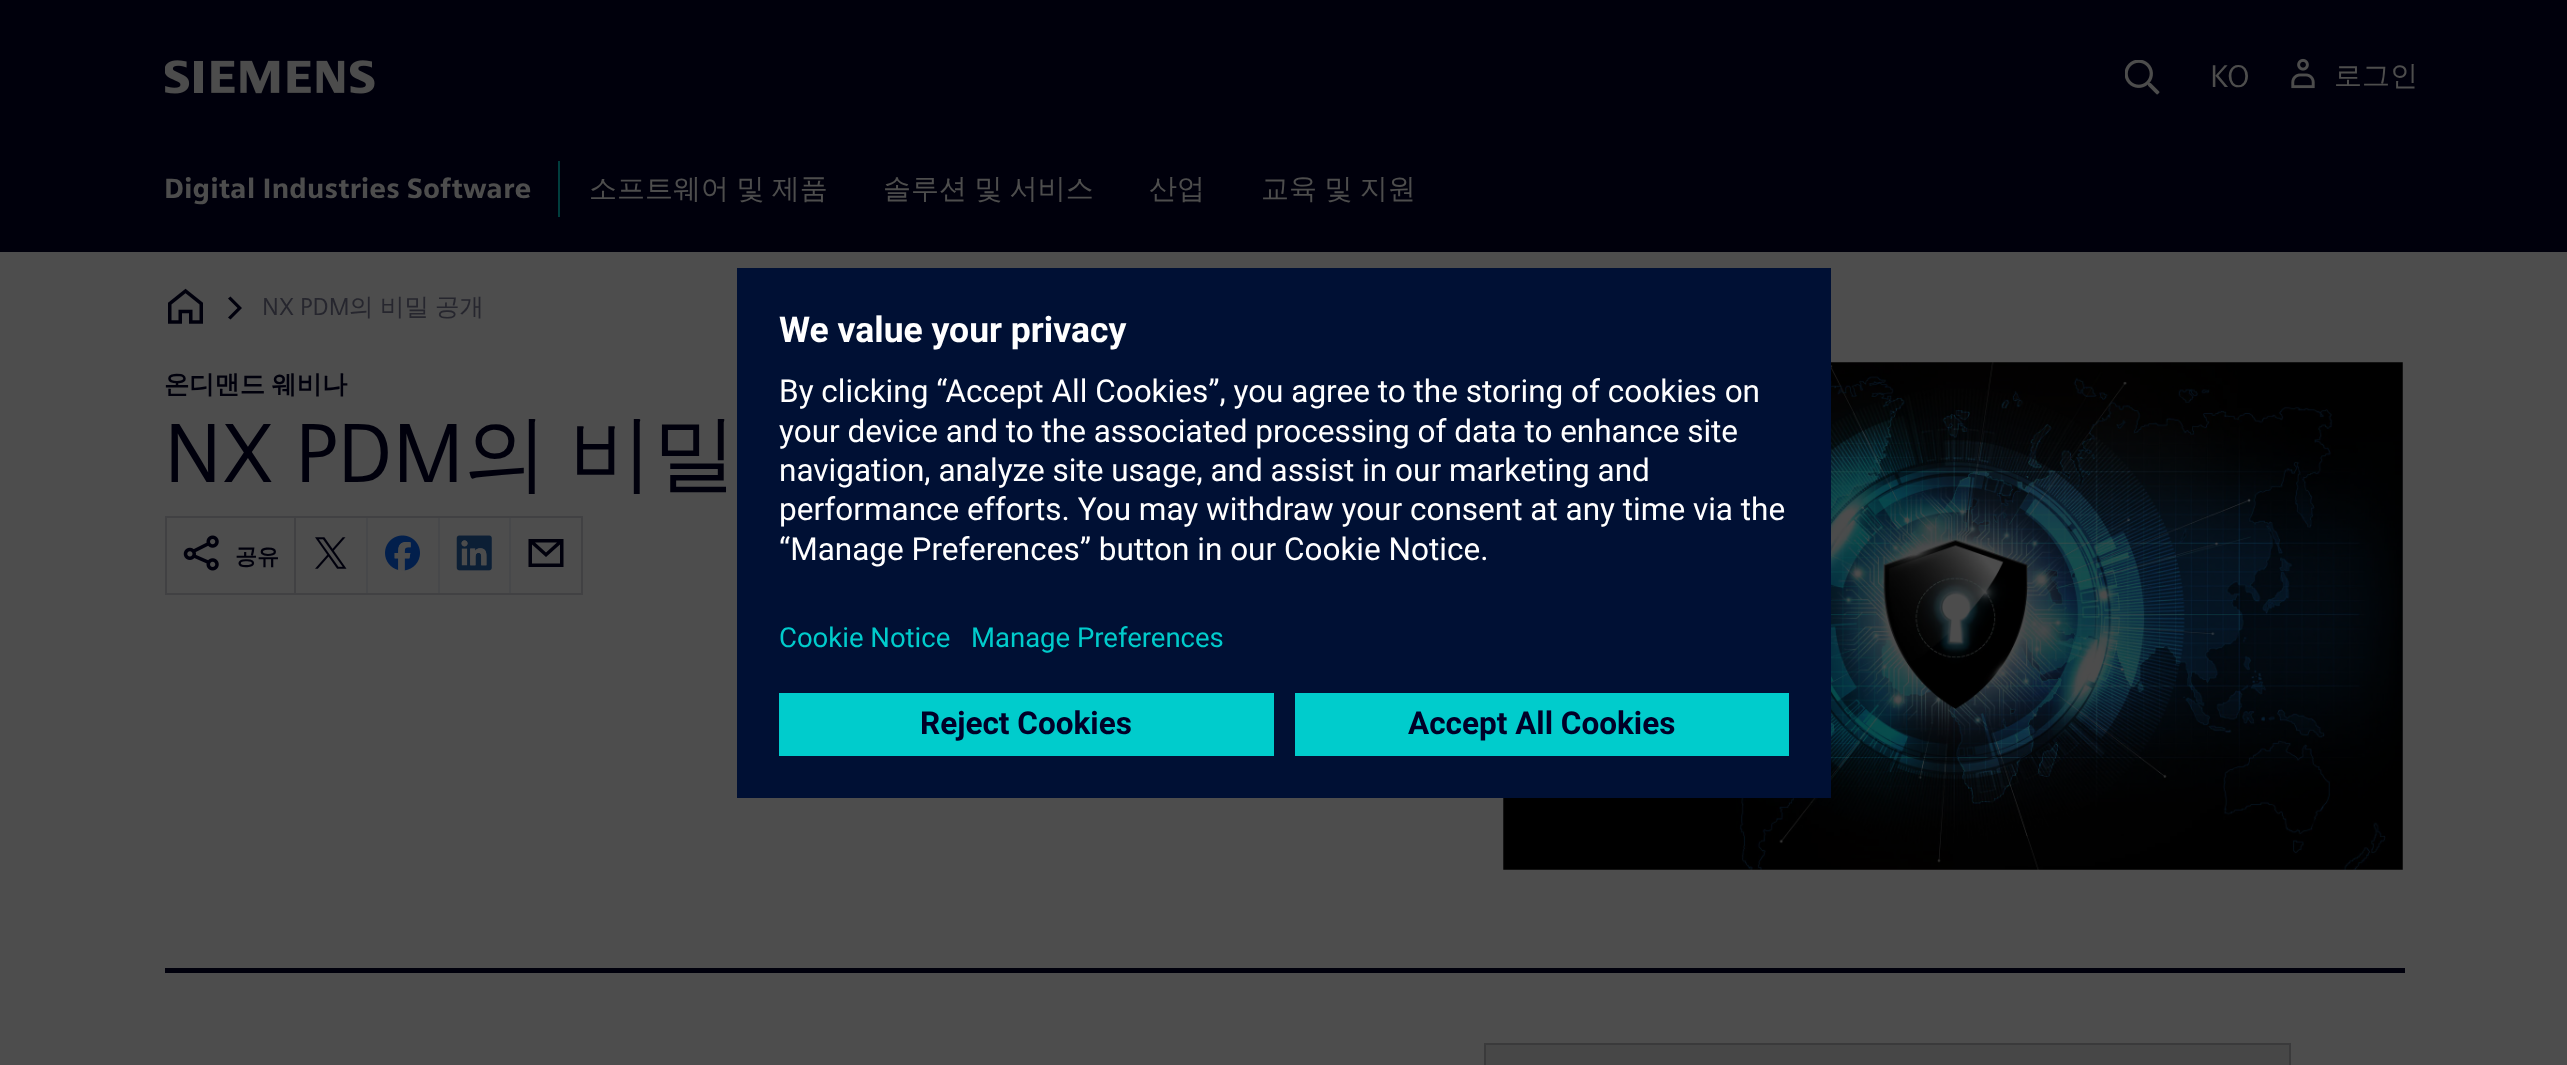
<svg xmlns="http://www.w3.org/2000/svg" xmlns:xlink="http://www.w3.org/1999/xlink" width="2567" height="1065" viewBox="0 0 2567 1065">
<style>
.cls-1{font:31.5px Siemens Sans;fill:#4d4d4d}
.cls-2{font:500 28px WenQuanYi Zen Hei;fill:#4d4d4d}
.cls-3{font:900 28px Siemens Sans;fill:#4d4d4d}
.cls-4{font:24.5px Siemens Sans;fill:#26262e}
.cls-5{font:500 24.5px WenQuanYi Zen Hei;fill:#26262e}
.cls-6{font:bold 25.25px WenQuanYi Zen Hei;fill:#00000c}
.cls-7{font:84px 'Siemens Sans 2';fill:#00000c}
.cls-8{font:500 84px WenQuanYi Zen Hei;fill:#00000c}
.cls-9{font:bold 22px WenQuanYi Zen Hei;fill:#00000c}
.cls-10{font:bold 35.5px Roboto;fill:#ffffff}
.cls-11{font:31.5px Roboto;fill:#ffffff}
.cls-12{font:27.5px Roboto;fill:#00cccc}
.cls-13{font:bold 31.5px Roboto;fill:#000028}
</style>
<rect width="100%" height="100%" fill="#4d4d4d"/>
<rect fill="#00000c" x="0" y="0" width="2567" height="252"/>
<image xlink:href="image0.png" x="2125" y="60" width="35" height="35"/>
<image xlink:href="image1.png" x="2291" y="58" width="24" height="31"/>
<image xlink:href="image2.png" x="165" y="60" width="210" height="34"/>
<rect fill="#003d3d" x="558" y="161" width="2" height="56"/>
<image xlink:href="image3.png" x="168" y="288" width="35" height="36"/>
<path fill="#00000c" d="M230.5 319.5L228 317.5L237.5 308L228 298.5L230.5 296.5L242 308Z"/>
<rect fill="#00000c" x="165" y="968" width="2240" height="5"/>
<rect fill="none" stroke="#414143" stroke-width="2" x="166" y="517" width="416" height="77"/>
<rect fill="#414143" x="294" y="518" width="2" height="75"/>
<image xlink:href="image4.png" x="183" y="535" width="36" height="36"/>
<image xlink:href="image5.png" x="315" y="537" width="32" height="32"/>
<rect fill="#47484a" x="366" y="518" width="2" height="75"/>
<image xlink:href="image6.png" x="385" y="535" width="35" height="36"/>
<rect fill="#47484a" x="438" y="518" width="2" height="75"/>
<image xlink:href="image7.png" x="456" y="535" width="36" height="36"/>
<rect fill="#47484a" x="509" y="518" width="2" height="75"/>
<path fill="#00000c" d="M528.5 539V567H563.5V539ZM557 542.5L546 552.5L535 542.5ZM532 563.5V544.5L546 557L560 544.5V563.5Z"/>
<image xlink:href="image8.png" x="1503" y="362" width="900" height="508"/>
<rect fill="#474747" stroke="#3a3a3b" stroke-width="2" x="1485" y="1044" width="805" height="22"/>
<rect fill="#001034" x="737" y="268" width="1094" height="530"/>
<rect fill="#00cccc" x="779" y="693" width="495" height="63"/>
<rect fill="#00cccc" x="1295" y="693" width="494" height="63"/>
<text class="cls-1" x="2210" y="87">KO</text>
<text class="cls-2" x="2334" y="85">로그인</text>
<text class="cls-3" x="164" y="198">Digital Industries Software</text>
<text class="cls-2" x="589" y="198" word-spacing="-1">소프트웨어 및 제품</text>
<text class="cls-2" x="883" y="198" word-spacing="-1">솔루션 및 서비스</text>
<text class="cls-2" x="1149" y="198">산업</text>
<text class="cls-2" x="1261" y="198" word-spacing="-1">교육 및 지원</text>
<text class="cls-4" x="262" y="315">NX PDM</text>
<text class="cls-5" x="349" y="315">의</text>
<text class="cls-5" x="380" y="315">비밀</text>
<text class="cls-5" x="435" y="315">공개</text>
<text class="cls-6" x="164" y="393" word-spacing="-1">온디맨드 웨비나</text>
<text class="cls-7" x="164" y="482">NX PDM</text>
<text class="cls-8" x="464" y="482">의</text>
<text class="cls-8" x="569" y="482">비밀</text>
<text class="cls-9" x="235" y="564">공유</text>
<text class="cls-10" x="779" y="342">We value your privacy</text>
<text class="cls-11"><tspan x="779" y="402">By clicking “Accept All Cookies”, you agree to the storing of cookies on</tspan><tspan x="779" y="442">your device and to the associated processing of data to enhance site</tspan><tspan x="779" y="481">navigation, analyze site usage, and assist in our marketing and</tspan><tspan x="779" y="520">performance efforts. You may withdraw your consent at any time via the</tspan><tspan x="779" y="560">“Manage Preferences” button in our Cookie Notice.</tspan></text>
<text class="cls-12" x="779" y="647">Cookie Notice</text>
<text class="cls-12" x="971" y="647">Manage Preferences</text>
<text class="cls-13" x="920" y="734">Reject Cookies</text>
<text class="cls-13" x="1408" y="734">Accept All Cookies</text>
</svg>
